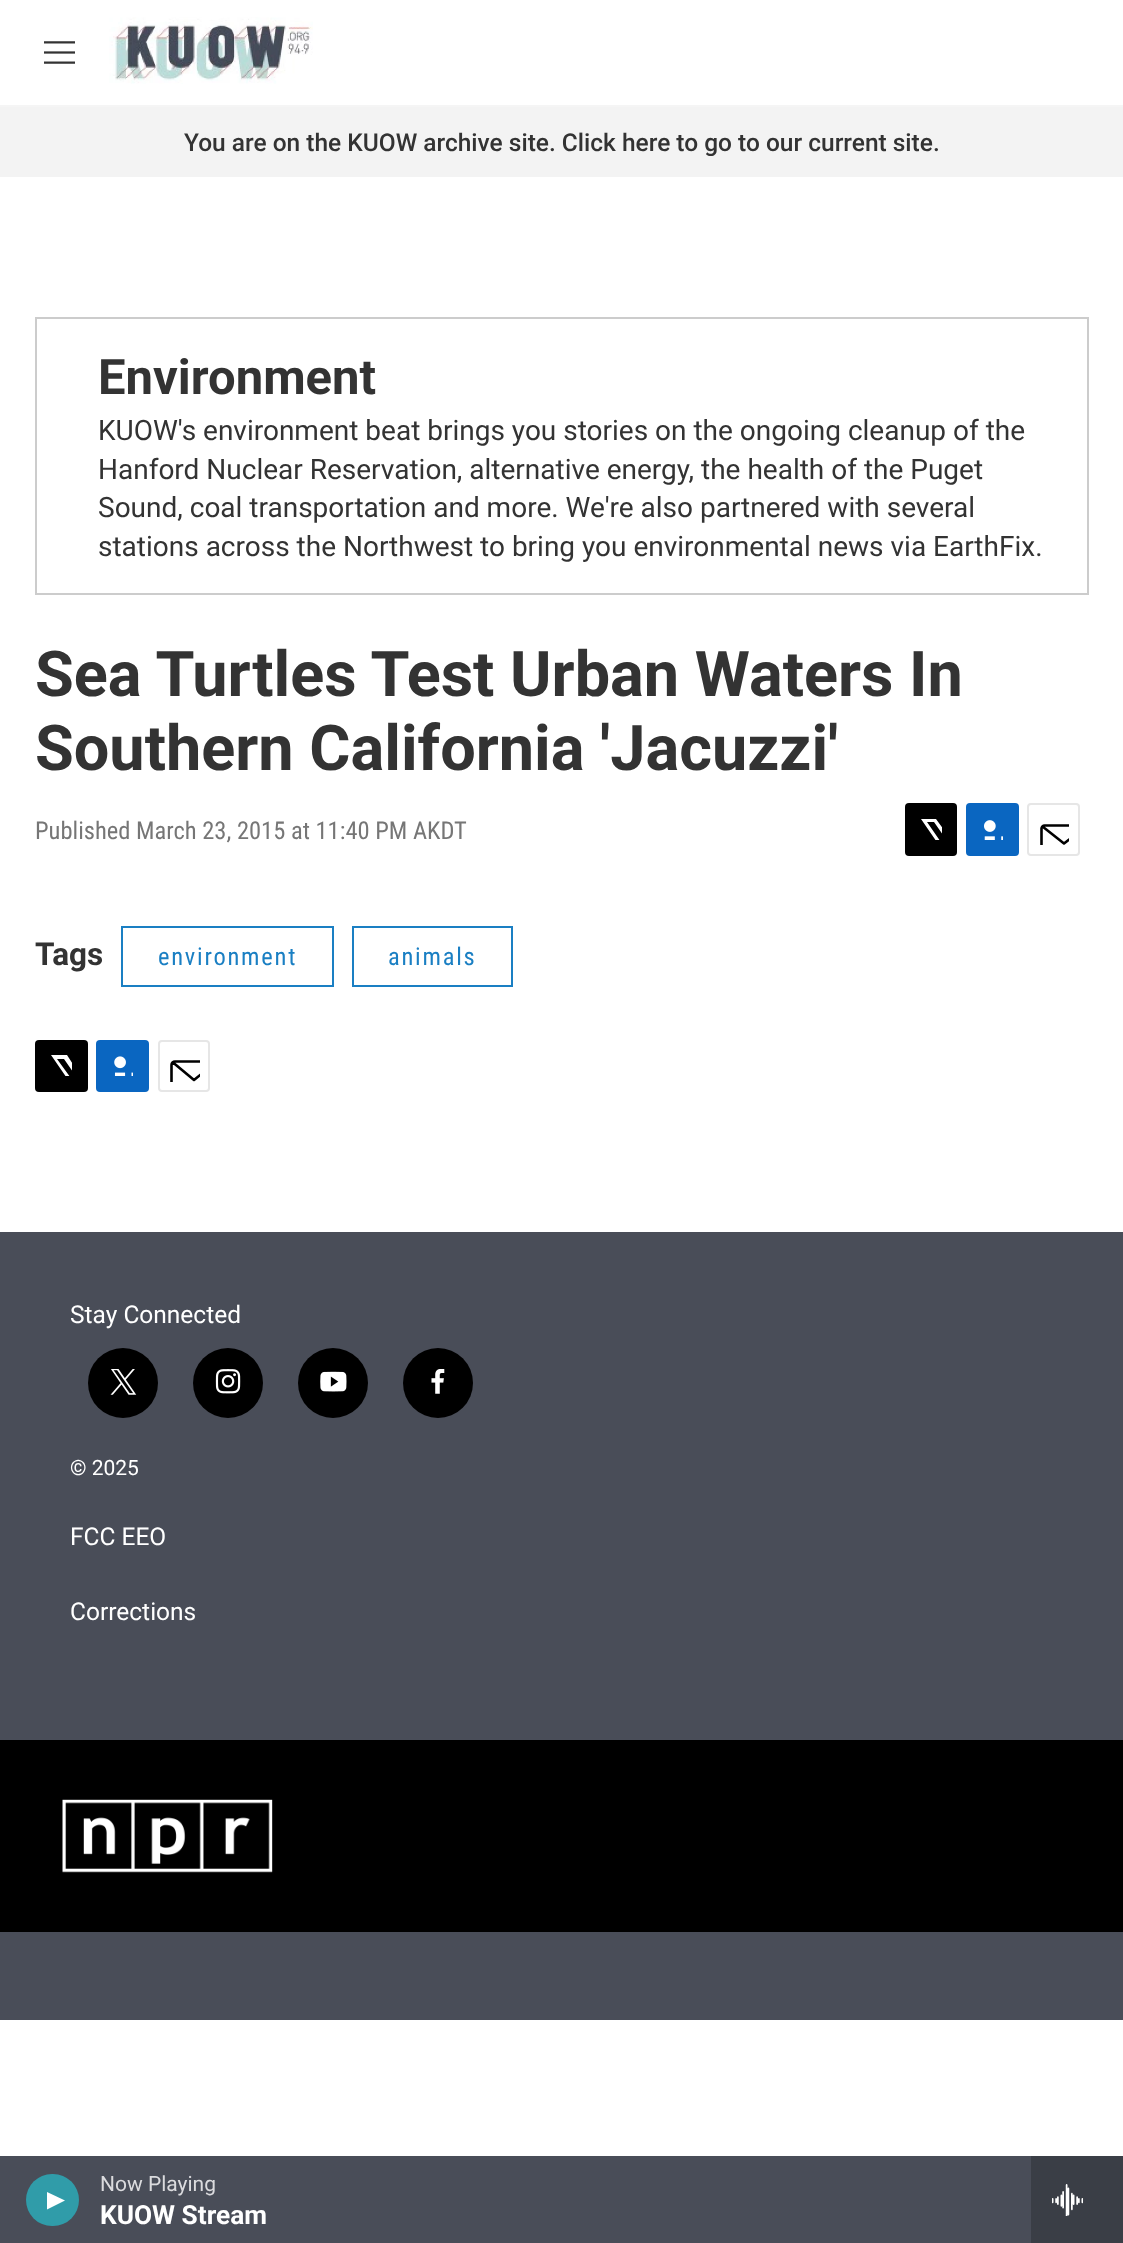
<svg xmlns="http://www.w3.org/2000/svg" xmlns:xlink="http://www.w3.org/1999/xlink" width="1123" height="2243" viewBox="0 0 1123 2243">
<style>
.cls-1{font:500 24.5px Roboto;fill:#333333}
.cls-2{font:bold 49px Roboto;fill:#333333}
.cls-3{font:28px Roboto;fill:#333333}
.cls-4{font:bold 63px 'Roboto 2';fill:#333333}
.cls-5{font:24.5px Roboto Condensed;fill:#767676}
.cls-6{font:bold 31.5px 'Roboto 2';fill:#333333}
.cls-7{font:24.5px Roboto Condensed;letter-spacing:1.75px;fill:#1a7fc3}
.cls-8{font:24.5px Roboto;fill:#ffffff}
.cls-9{font:21px Roboto;fill:#ffffff}
.cls-10{font:21px Roboto;fill:#dbdbde}
.cls-11{font:bold 26.25px Roboto;fill:#ffffff}
</style>
<defs>
<clipPath id="clip1"><rect x="921" y="819" width="21" height="21"/></clipPath>
<clipPath id="clip2"><rect x="1038" y="814" width="31" height="31"/></clipPath>
<clipPath id="clip3"><rect x="51" y="1055" width="21" height="21"/></clipPath>
<clipPath id="clip4"><rect x="168" y="1050" width="32" height="32"/></clipPath>
</defs>
<rect width="100%" height="100%" fill="#ffffff"/>
<rect fill="#f3f3f3" x="0" y="107" width="1123" height="70"/>
<rect fill="none" stroke="#cccccc" stroke-width="2" x="36" y="318" width="1052" height="276"/>
<rect fill="#000000" x="905" y="803" width="52" height="53" rx="4"/>
<g clip-path="url(#clip1)">
<path fill="#ffffff" d="M952 841L957 848.5C957 850.5 957.5 852.5 956.5 854L934 822H927L950.5 856H946.5L943 851L939 856H934L941 848L921 819H936L950 838L957 829.5V835Z"/>
</g>
<rect fill="#0a66c1" x="966" y="803" width="53" height="53" rx="4"/>
<image xlink:href="image0.png" x="984" y="820" width="19" height="20"/>
<rect fill="none" stroke="#e6e6e6" stroke-width="2" x="1028" y="804" width="51" height="51" rx="3"/>
<g clip-path="url(#clip2)">
<path fill="none" stroke="#000000" stroke-width="2.6" stroke-linecap="round" stroke-linejoin="round" d="M1086.5 852C1086.5 854 1085 855.5 1083.5 855.5H1044.5C1043 855.5 1041.5 854 1041.5 852V828.5C1041.5 827 1043 825.5 1044.5 825.5H1083.5C1085 825.5 1086.5 827 1086.5 828.5ZM1085.5 826.5L1064 843.5L1042.5 826.5"/>
</g>
<rect fill="none" stroke="#1a7fc3" stroke-width="2" x="122" y="927" width="211" height="59"/>
<rect fill="none" stroke="#1a7fc3" stroke-width="2" x="353" y="927" width="159" height="59"/>
<rect fill="#000000" x="35" y="1040" width="53" height="52" rx="4"/>
<g clip-path="url(#clip3)">
<path fill="#ffffff" d="M82 1077L88 1086C88 1087.5 88 1089.5 86.5 1091L64 1059H57L81 1092H76.5L73 1087L69 1092H64.5L71 1084L51 1055H67L80 1075L88 1065V1070Z"/>
</g>
<rect fill="#0a66c1" x="96" y="1040" width="53" height="52" rx="4"/>
<image xlink:href="image1.png" x="114" y="1056" width="19" height="20"/>
<rect fill="none" stroke="#e6e6e6" stroke-width="2" x="159" y="1041" width="50" height="50" rx="3"/>
<g clip-path="url(#clip4)">
<path fill="none" stroke="#000000" stroke-width="2.6" stroke-linecap="round" stroke-linejoin="round" d="M217 1088.5C217 1090 215.5 1091.5 213.5 1091.5H175C173 1091.5 171.5 1090 171.5 1088.5V1065C171.5 1063 173 1061.5 175 1061.5H213.5C215.5 1061.5 217 1063 217 1065ZM215.5 1062.5L194 1080L173 1062.5"/>
</g>
<rect fill="#494d58" x="0" y="1232" width="1123" height="788"/>
<circle fill="#000000" cx="123" cy="1383" r="35"/>
<image xlink:href="image2.png" x="110" y="1369" width="27" height="26"/>
<circle fill="#000000" cx="228" cy="1383" r="35"/>
<image xlink:href="image3.png" x="215" y="1369" width="26" height="25"/>
<circle fill="#000000" cx="333" cy="1383" r="35"/>
<image xlink:href="image4.png" x="320" y="1371" width="27" height="21"/>
<circle fill="#000000" cx="438" cy="1383" r="35"/>
<image xlink:href="image5.png" x="431" y="1369" width="14" height="25"/>
<rect fill="#000000" x="0" y="1740" width="1123" height="192"/>
<image xlink:href="image6.png" x="62" y="1799" width="211" height="74"/>
<rect fill="#f5f5f5" x="0" y="105" width="1123" height="2"/>
<image xlink:href="image7.png" x="44" y="41" width="31" height="23"/>
<image xlink:href="image8.png" x="109" y="17" width="204" height="67"/>
<rect fill="#494d58" x="0" y="2156" width="1031" height="87"/>
<rect fill="#309ca9" x="26" y="2174" width="53" height="52" rx="26"/>
<path fill="#ffffff" d="M47 2192L65 2200.5L47 2209.5Z"/>
<rect fill="#3a3e46" x="1031" y="2156" width="92" height="87"/>
<image xlink:href="image9.png" x="1052" y="2184" width="31" height="32"/>
<text class="cls-1" x="184" y="151">You are on the KUOW archive site. Click here to go to our current site.</text>
<text class="cls-2" x="98" y="394">Environment</text>
<text class="cls-3"><tspan x="98" y="440">KUOW's environment beat brings you stories on the ongoing cleanup of the</tspan><tspan x="98" y="479">Hanford Nuclear Reservation, alternative energy, the health of the Puget</tspan><tspan x="98" y="517">Sound, coal transportation and more. We're also partnered with several</tspan><tspan x="98" y="556">stations across the Northwest to bring you environmental news via EarthFix.</tspan></text>
<text class="cls-4"><tspan x="35" y="696">Sea Turtles Test Urban Waters In</tspan><tspan x="35" y="770">Southern California 'Jacuzzi'</tspan></text>
<text class="cls-5" x="35" y="839">Published March 23, 2015 at 11:40 PM AKDT</text>
<text class="cls-6" x="35" y="965">Tags</text>
<text class="cls-7" x="158" y="965">environment</text>
<text class="cls-7" x="388" y="965">animals</text>
<text class="cls-8" x="70" y="1323">Stay Connected</text>
<text class="cls-9" x="70" y="1475">© 2025</text>
<text class="cls-8" x="70" y="1545">FCC EEO</text>
<text class="cls-8" x="70" y="1620">Corrections</text>
<text class="cls-10" x="100" y="2191">Now Playing</text>
<text class="cls-11" x="100" y="2224">KUOW Stream</text>
</svg>
